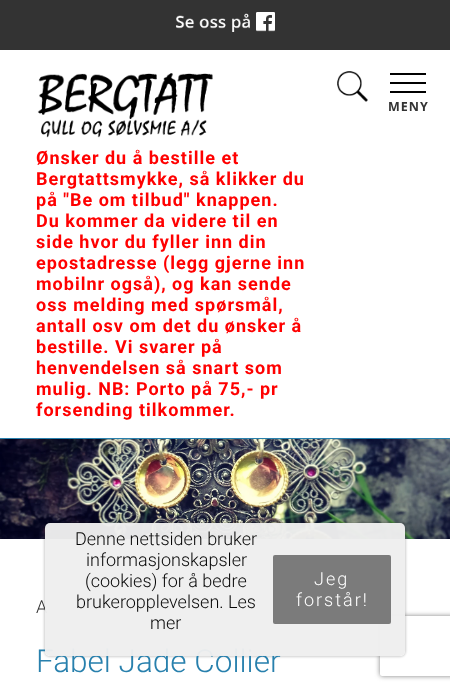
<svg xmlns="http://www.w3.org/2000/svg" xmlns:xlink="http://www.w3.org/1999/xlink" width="450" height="690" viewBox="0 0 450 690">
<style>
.cls-1{font:bold 12.5px Open Sans;letter-spacing:1px;fill:#333333}
.cls-2{font:bold 18px Roboto;letter-spacing:1px;fill:#ff0000}
.cls-3{font:300 18px Roboto;fill:#333333}
.cls-4{font:300 31.5px Roboto;fill:#2880ad}
.cls-5{font:300 18px Roboto;letter-spacing:2px;fill:#ffffff}
.cls-6{font:300 18px Roboto;fill:#070707}
</style>
<defs>
<clipPath id="clip1"><path d="M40 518H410V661H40ZM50 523H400C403 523 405 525 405 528V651C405 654 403 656 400 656H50C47 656 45 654 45 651V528C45 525 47 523 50 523Z" clip-rule="evenodd"/></clipPath>
<clipPath id="clip2"><path d="M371 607H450V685H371ZM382 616H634C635 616 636 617 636 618V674C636 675 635 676 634 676H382C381 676 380 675 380 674V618C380 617 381 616 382 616Z" clip-rule="evenodd"/></clipPath>
</defs>
<rect width="100%" height="100%" fill="#ffffff"/>
<rect fill="#2880ad" x="0" y="438" width="450" height="1"/>
<image xlink:href="image0.png" x="337" y="71" width="31" height="31"/>
<rect fill="#000000" x="390" y="82" width="36" height="2"/>
<rect fill="#000000" x="390" y="73" width="36" height="2"/>
<rect fill="#000000" x="390" y="91" width="36" height="2"/>
<image xlink:href="image1.png" x="37" y="73" width="176" height="65"/>
<image xlink:href="image2.png" x="0" y="439" width="450" height="100"/>
<g clip-path="url(#clip1)">
<rect fill="#000000" fill-opacity="0.19" filter="blur(1px)" x="44" y="522" width="362" height="135" rx="6"/>
</g>
<rect fill="#333333" x="0" y="0" width="450" height="50"/>
<image xlink:href="image3.png" x="176" y="12" width="99" height="20"/>
<g clip-path="url(#clip2)">
<rect fill="#808080" filter="blur(2.5px)" x="380" y="616" width="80" height="60" rx="2"/>
</g>
<text class="cls-1" x="388" y="111">MENY</text>
<text class="cls-2"><tspan x="36" y="164">Ønsker du å bestille et</tspan><tspan x="36" y="185">Bergtattsmykke, så klikker du</tspan><tspan x="36" y="206">på "Be om tilbud" knappen.</tspan><tspan x="36" y="227">Du kommer da videre til en</tspan><tspan x="36" y="248">side hvor du fyller inn din</tspan><tspan x="36" y="269">epostadresse (legg gjerne inn</tspan><tspan x="36" y="290">mobilnr også), og kan sende</tspan><tspan x="36" y="311">oss melding med spørsmål,</tspan><tspan x="36" y="332">antall osv om det du ønsker å</tspan><tspan x="36" y="353">bestille. Vi svarer på</tspan><tspan x="36" y="374">henvendelsen så snart som</tspan><tspan x="36" y="395">mulig. NB: Porto på 75,- pr</tspan><tspan x="36" y="416">forsending tilkommer.</tspan></text>
<text class="cls-3" x="36" y="613">A</text>
<text class="cls-4" x="36" y="672">Fabel Jade Collier</text>
<rect fill="#eeeeee" fill-opacity="0.97" x="45" y="523" width="360" height="133" rx="5"/>
<rect fill="#7b7b7b" x="273" y="555" width="118" height="69" rx="2"/>
<text class="cls-5" x="296" y="606">forstår!</text>
<text class="cls-5" x="314" y="585">Jeg</text>
<text class="cls-6" x="150" y="629">mer</text>
<text class="cls-6" x="228" y="608">Les</text>
<text class="cls-6" x="76" y="608">brukeropplevelsen.</text>
<text class="cls-6" x="85" y="587">(cookies) for å bedre</text>
<text class="cls-6" x="86" y="566">informasjonskapsler</text>
<text class="cls-6" x="75" y="545">Denne nettsiden bruker</text>
</svg>
